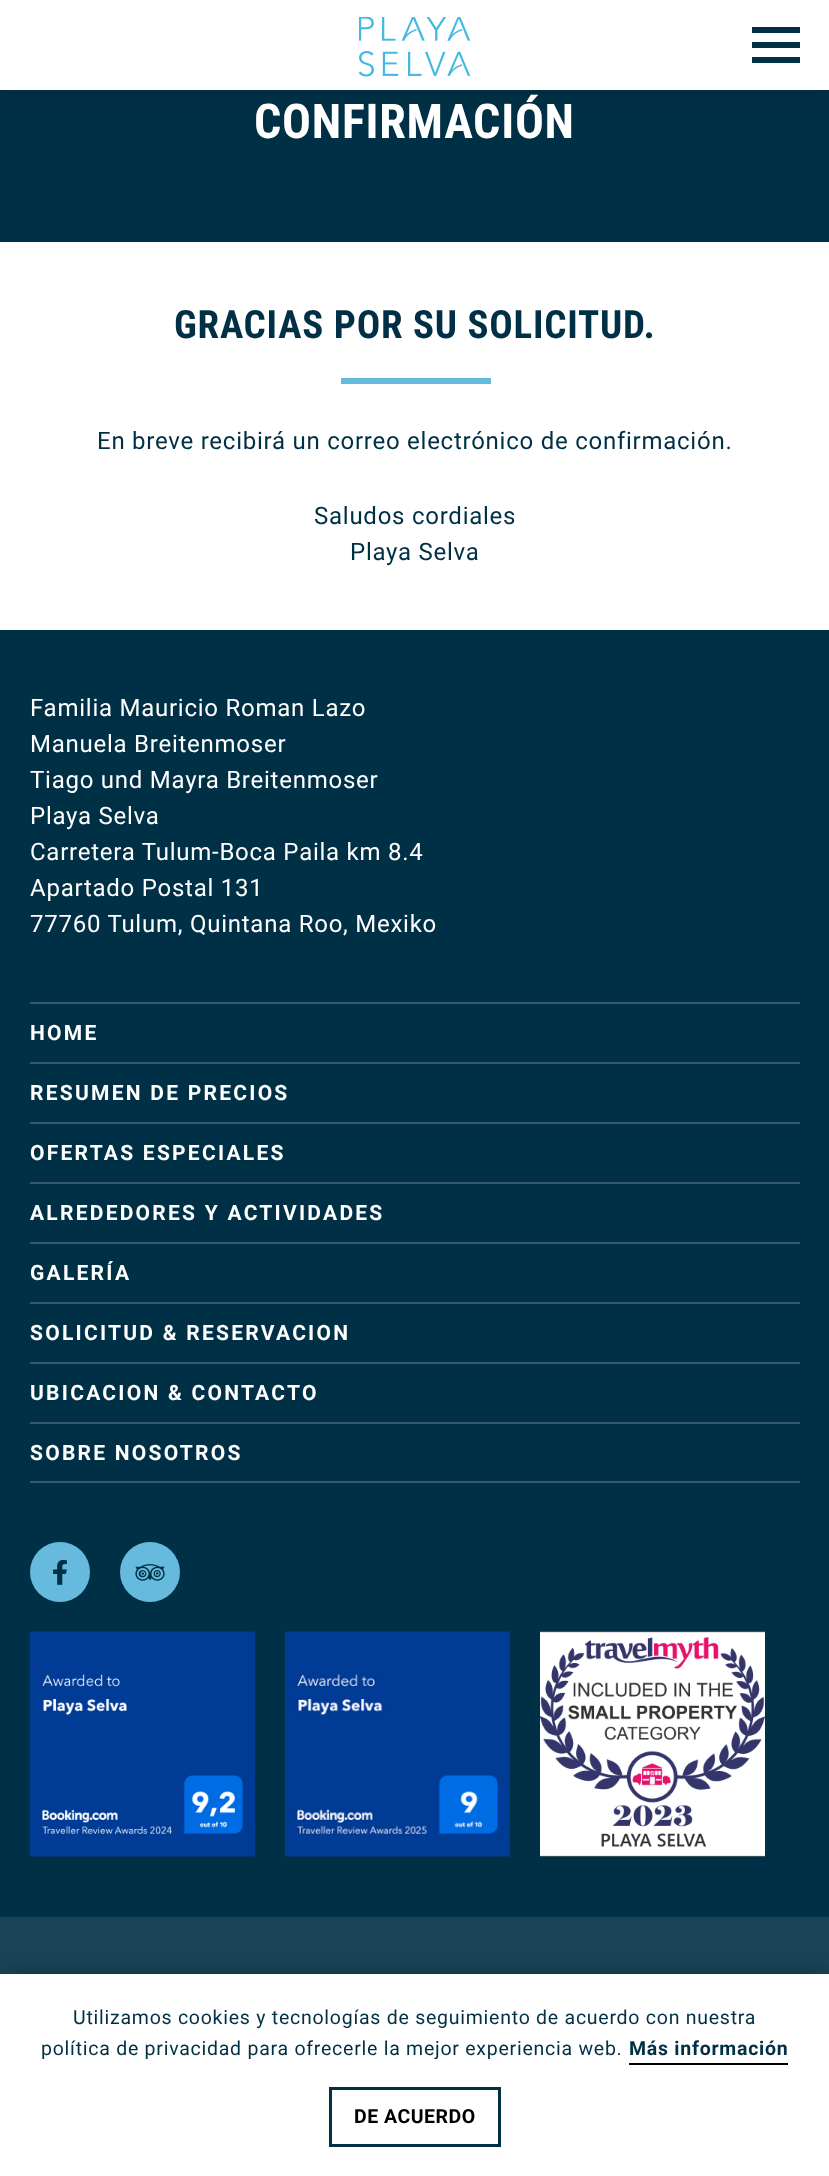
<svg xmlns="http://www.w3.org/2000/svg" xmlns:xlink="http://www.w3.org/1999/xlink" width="829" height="2176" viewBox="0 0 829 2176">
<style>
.cls-1{font:bold 48px Roboto Condensed;letter-spacing:0.75px;fill:#ffffff}
.cls-2{font:bold 39px Roboto Condensed;letter-spacing:0.75px;fill:#003045}
.cls-3{font:24px Roboto;letter-spacing:0.75px;fill:#003045}
.cls-4{font:24px Roboto;letter-spacing:0.75px;fill:#ffffff}
.cls-5{font:bold 21px Roboto;letter-spacing:2.25px;fill:#ffffff}
.cls-6{font:19.5px Roboto;letter-spacing:0.75px;fill:#003045}
.cls-7{font:bold 19.5px Roboto;letter-spacing:0.75px;fill:#003045}
.cls-8{font:bold 19.5px Roboto;letter-spacing:0.5px;fill:#000000}
</style>
<rect width="100%" height="100%" fill="#ffffff"/>
<rect fill="#003045" x="0" y="90" width="829" height="152"/>
<rect fill="#000000" fill-opacity="0.1" filter="blur(7.5px)" x="0" y="3" width="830" height="90"/>
<rect fill="#ffffff" x="0" y="0" width="829" height="90"/>
<image xlink:href="image0.png" x="359" y="17" width="112" height="60"/>
<rect fill="#003045" x="752" y="27" width="48" height="6"/>
<rect fill="#003045" x="752" y="42" width="48" height="6"/>
<rect fill="#003045" x="752" y="57" width="48" height="6"/>
<rect fill="#66bade" x="341" y="378" width="150" height="6"/>
<rect fill="#003045" x="0" y="630" width="829" height="1287"/>
<rect fill="#33596a" x="30" y="1002" width="770" height="2"/>
<rect fill="#33596a" x="30" y="1062" width="770" height="2"/>
<rect fill="#33596a" x="30" y="1122" width="770" height="2"/>
<rect fill="#33596a" x="30" y="1182" width="770" height="2"/>
<rect fill="#33596a" x="30" y="1242" width="770" height="2"/>
<rect fill="#33596a" x="30" y="1302" width="770" height="2"/>
<rect fill="#33596a" x="30" y="1362" width="770" height="2"/>
<rect fill="#33596a" x="30" y="1422" width="770" height="2"/>
<rect fill="#33596a" x="30" y="1481" width="770" height="2"/>
<circle fill="#66bade" cx="60" cy="1572" r="30"/>
<image xlink:href="image1.png" x="53" y="1560" width="14" height="25"/>
<circle fill="#66bade" cx="150" cy="1572" r="30"/>
<image xlink:href="image2.png" x="135" y="1564" width="30" height="17"/>
<image xlink:href="image3.png" x="30" y="1631" width="225" height="226"/>
<image xlink:href="image4.png" x="285" y="1631" width="225" height="226"/>
<image xlink:href="image5.png" x="540" y="1631" width="225" height="226"/>
<rect fill="#1a4558" x="0" y="1917" width="829" height="57"/>
<rect fill="#000000" fill-opacity="0.3" filter="blur(11px)" x="0" y="1974" width="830" height="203"/>
<rect fill="#ffffff" x="0" y="1974" width="829" height="202"/>
<rect fill="#000000" x="629" y="2063" width="159" height="2"/>
<rect fill="none" stroke="#003045" stroke-width="3" x="330.5" y="2088.5" width="169" height="57"/>
<text class="cls-1" x="254" y="138">CONFIRMACIÓN</text>
<text class="cls-2" x="174" y="338">GRACIAS POR SU SOLICITUD.</text>
<text class="cls-3" x="97" y="449">En breve recibirá un correo electrónico de confirmación.</text>
<text class="cls-3" x="314" y="524">Saludos cordiales</text>
<text class="cls-3" x="350" y="560">Playa Selva</text>
<text class="cls-4"><tspan x="30" y="716">Familia Mauricio Roman Lazo</tspan><tspan x="30" y="752">Manuela Breitenmoser</tspan><tspan x="30" y="788">Tiago und Mayra Breitenmoser</tspan><tspan x="30" y="824">Playa Selva</tspan><tspan x="30" y="860">Carretera Tulum-Boca Paila km 8.4</tspan><tspan x="30" y="896">Apartado Postal 131</tspan><tspan x="30" y="932">77760 Tulum, Quintana Roo, Mexiko</tspan></text>
<text class="cls-5" x="30" y="1040">HOME</text>
<text class="cls-5" x="30" y="1100">RESUMEN DE PRECIOS</text>
<text class="cls-5" x="30" y="1160">OFERTAS ESPECIALES</text>
<text class="cls-5" x="30" y="1220">ALREDEDORES Y ACTIVIDADES</text>
<text class="cls-5" x="30" y="1280">GALERÍA</text>
<text class="cls-5" x="30" y="1340">SOLICITUD &amp; RESERVACION</text>
<text class="cls-5" x="30" y="1400">UBICACION &amp; CONTACTO</text>
<text class="cls-5" x="30" y="1460">SOBRE NOSOTROS</text>
<text class="cls-6" x="73" y="2024">Utilizamos cookies y tecnologías de seguimiento de acuerdo con nuestra</text>
<text class="cls-6" x="41" y="2055">política de privacidad para ofrecerle la mejor experiencia web.</text>
<text class="cls-7" x="629" y="2055">Más información</text>
<text class="cls-8" x="354" y="2123">DE ACUERDO</text>
</svg>
